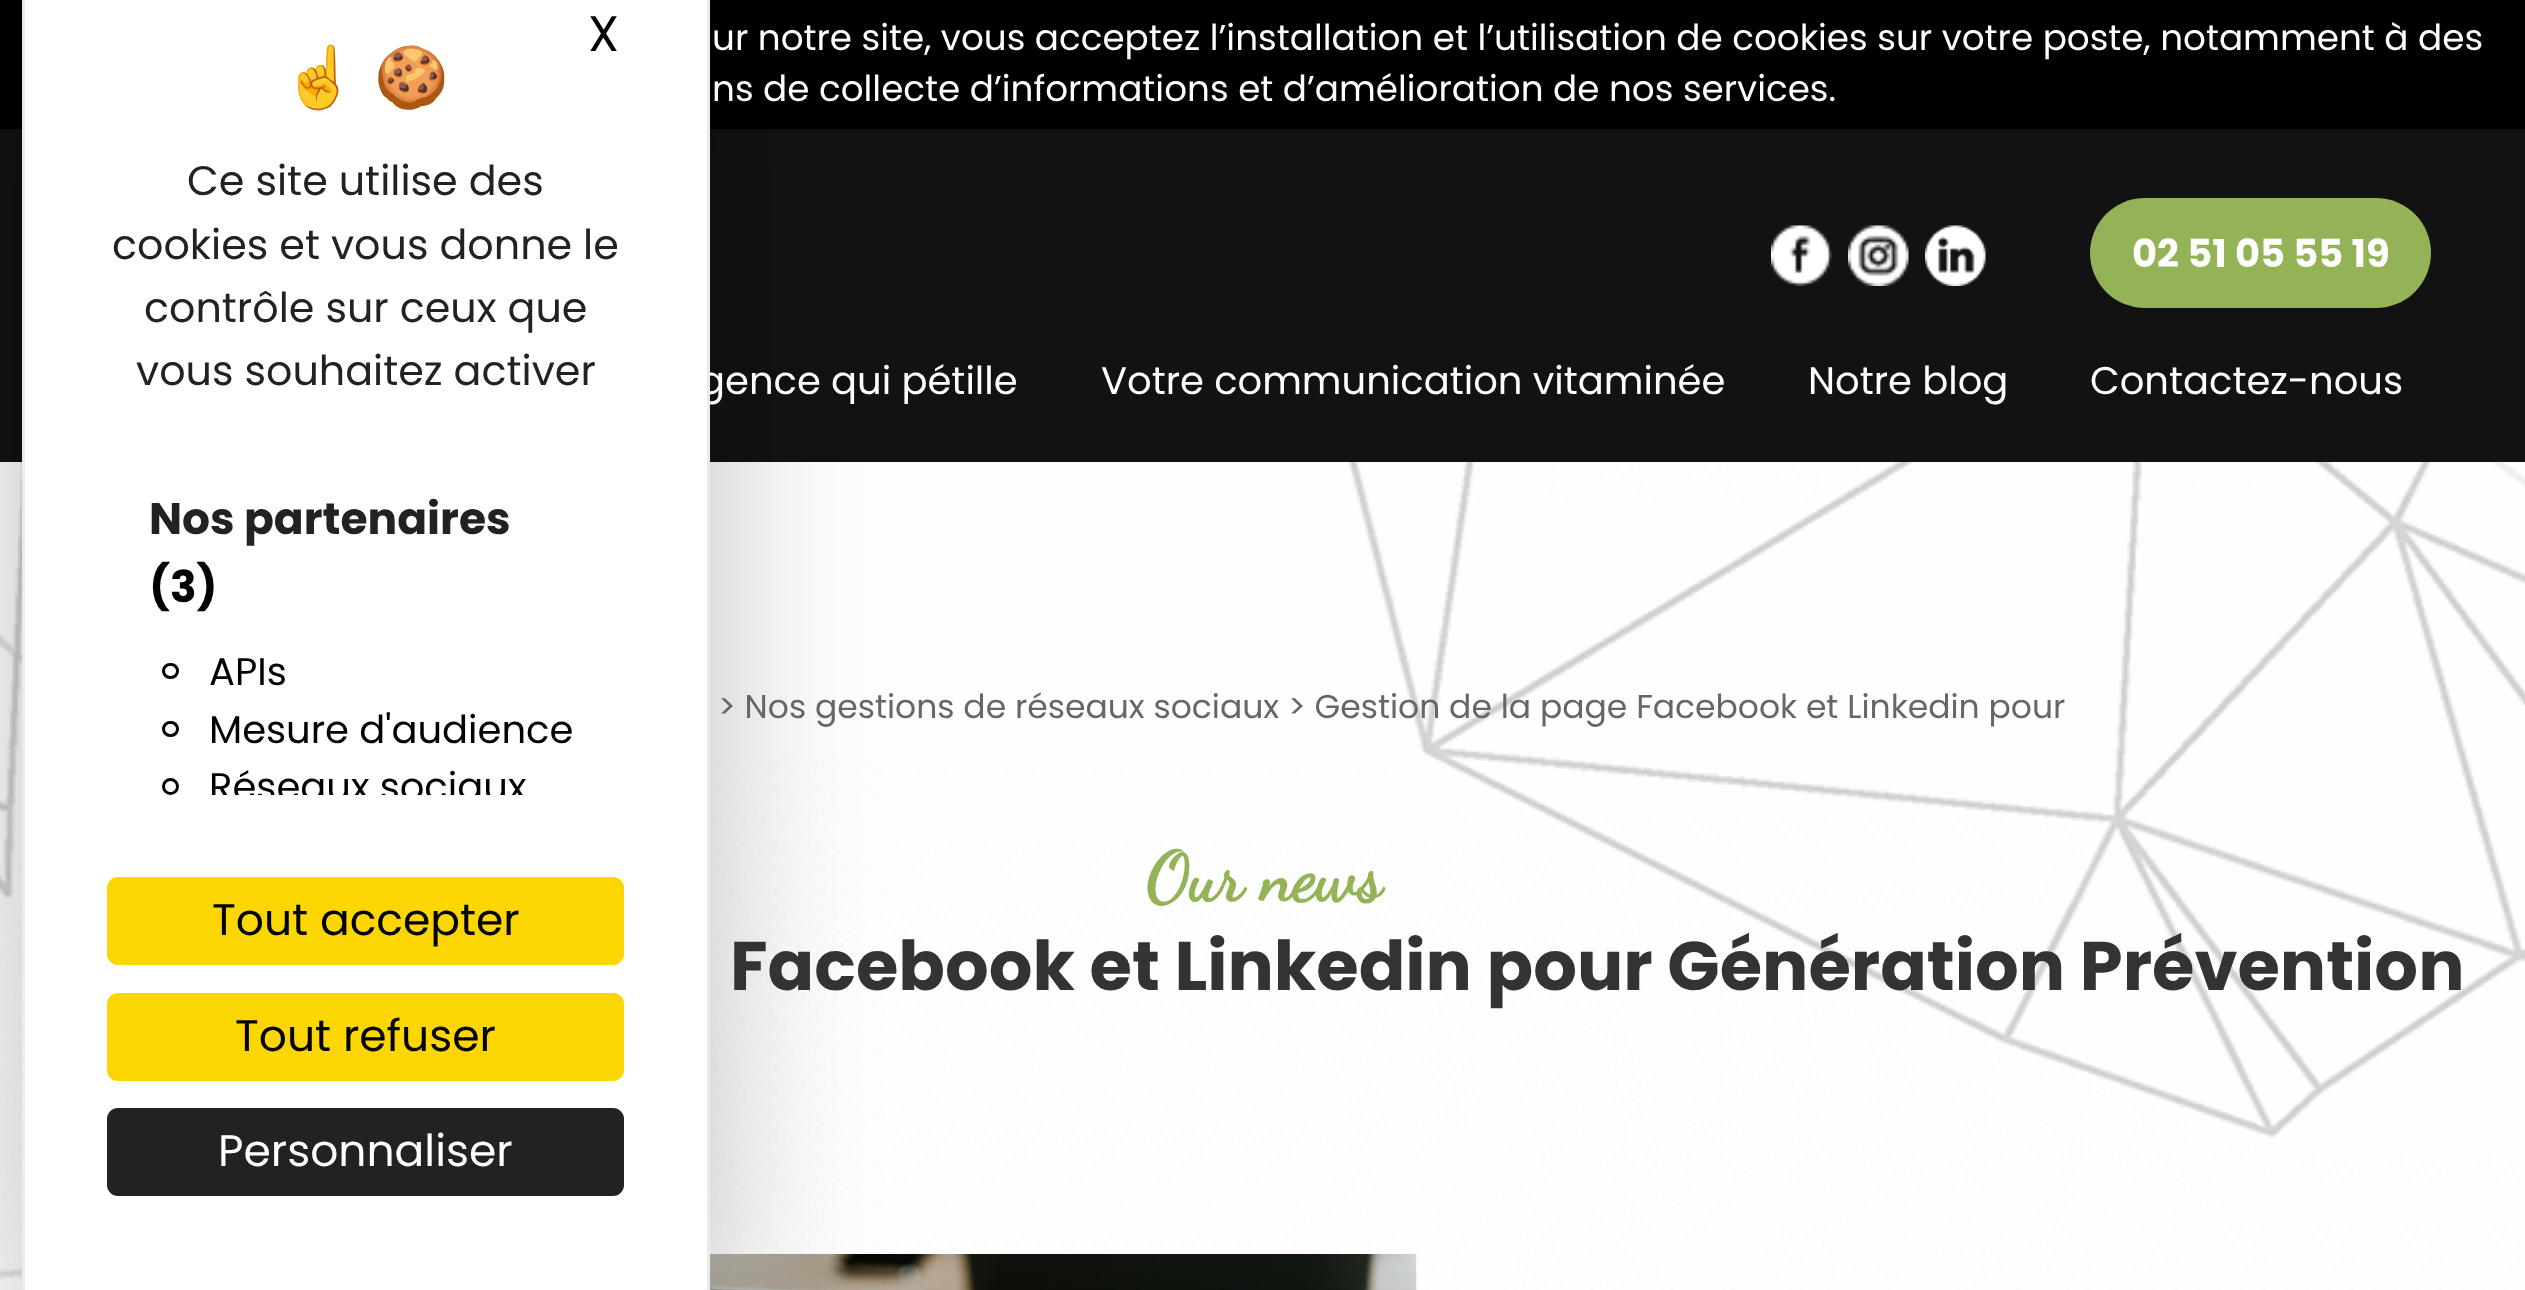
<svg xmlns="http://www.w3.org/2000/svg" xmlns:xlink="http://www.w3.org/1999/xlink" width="2525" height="1290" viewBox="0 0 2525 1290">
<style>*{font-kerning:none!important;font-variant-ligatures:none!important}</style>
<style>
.cls-1{font:35.75px Poppins;fill:#ffffff}
.cls-2{font:bold 38.5px Poppins;fill:#ffffff}
.cls-3{font:38.5px Poppins;fill:#ffffff}
.cls-4{font:50px Poppins;fill:#000000}
.cls-5{font:38.5px Poppins;fill:#000000}
.cls-6{font:bold 44px Poppins;fill:#000000}
.cls-7{font:bold 44px Poppins;fill:#222222}
.cls-8{font:41.25px Poppins;fill:#222222}
.cls-9{font:44px Poppins;fill:#ffffff}
.cls-10{font:44px Poppins;fill:#000000}
.cls-11{font:60px Noto Color Emoji;fill:#222222}
.cls-12{font:33px Poppins;fill:#666666}
.cls-13{font:bold 68.75px Dancing Script;fill:#94b256}
.cls-14{font:bold 68.75px Poppins;fill:#333333}
</style>
<defs>
<clipPath id="clip1"><rect x="25" y="149" width="682" height="646"/></clipPath>
</defs>
<rect width="100%" height="100%" fill="#ffffff"/>
<rect fill="#000000" x="0" y="0" width="2525" height="129"/>
<rect fill="#121212" x="0" y="129" width="2525" height="333"/>
<image xlink:href="image3.png" x="0" y="462" width="2525" height="828"/>
<image xlink:href="image4.png" x="710" y="1254" width="707" height="36"/>
<rect fill="#000000" fill-opacity="0.25" filter="blur(82.5px)" x="22" y="19" width="688" height="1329" rx="14"/>
<rect fill="#ffffff" x="25" y="0" width="682" height="1290"/>
<image xlink:href="image0.png" x="1771" y="225" width="61" height="61"/>
<image xlink:href="image1.png" x="1848" y="225" width="61" height="61"/>
<image xlink:href="image2.png" x="1925" y="225" width="61" height="61"/>
<rect fill="#94b256" x="2090" y="198" width="341" height="110" rx="55"/>
<text class="cls-1"><tspan x="712" y="50">ur notre site, vous acceptez l’installation et l’utilisation de cookies sur votre poste, notamment à des</tspan><tspan x="712" y="101">ns de collecte d’informations et d’amélioration de nos services.</tspan></text>
<text class="cls-2" x="2132" y="267">02 51 05 55 19</text>
<text class="cls-3" x="699" y="394">gence qui pétille</text>
<path fill="#ebebeb" fill-rule="evenodd" d="M36-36H696C703-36 710-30 710-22V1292H22V-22C22-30 28-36 36-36ZM36-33H696C702-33 707-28 707-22V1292H25V-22C25-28 30-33 36-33Z"/>
<text class="cls-4" x="588" y="51">X</text>
<g clip-path="url(#clip1)">
<text class="cls-5" x="209" y="800">Réseaux sociaux</text>
</g>
<circle fill="none" stroke="#000000" stroke-width="3" cx="170.5" cy="786.5" r="7"/>
<text class="cls-5" x="209" y="743">Mesure d'audience</text>
<rect fill="none" stroke="#000000" stroke-width="3" x="163.5" y="722.5" width="14" height="13" rx="6.5"/>
<text class="cls-5" x="209" y="685">APIs</text>
<rect fill="none" stroke="#000000" stroke-width="3" x="163.5" y="664.5" width="14" height="13" rx="6.5"/>
<text class="cls-6" x="149" y="602">(3)</text>
<text class="cls-7" x="149" y="534">Nos partenaires</text>
<text class="cls-8" x="136" y="385">vous souhaitez activer</text>
<text class="cls-8" x="144" y="322">contrôle sur ceux que</text>
<text class="cls-8" x="112" y="259">cookies et vous donne le</text>
<text class="cls-8" x="187" y="195">Ce site utilise des</text>
<rect fill="#222222" x="107" y="1108" width="517" height="88" rx="11"/>
<text class="cls-9" x="218" y="1166">Personnaliser</text>
<rect fill="#fbd600" x="107" y="993" width="517" height="88" rx="11"/>
<text class="cls-10" x="235" y="1051">Tout refuser</text>
<rect fill="#fbd600" x="107" y="877" width="517" height="88" rx="11"/>
<text class="cls-10" x="212" y="935">Tout accepter</text>
<text class="cls-11" x="374" y="98">🍪</text>
<text class="cls-11" x="282" y="98">☝️</text>
<text class="cls-3" x="1101" y="394">Votre communication vitaminée</text>
<text class="cls-3" x="1808" y="394">Notre blog</text>
<text class="cls-3" x="2090" y="394">Contactez-nous</text>
<text class="cls-12" x="718" y="718">&gt; Nos gestions de réseaux sociaux &gt; Gestion de la page Facebook et Linkedin pour</text>
<text class="cls-13" x="1146" y="900">Our news</text>
<text class="cls-14" x="730" y="990">Facebook et Linkedin pour Génération Prévention</text>
</svg>
